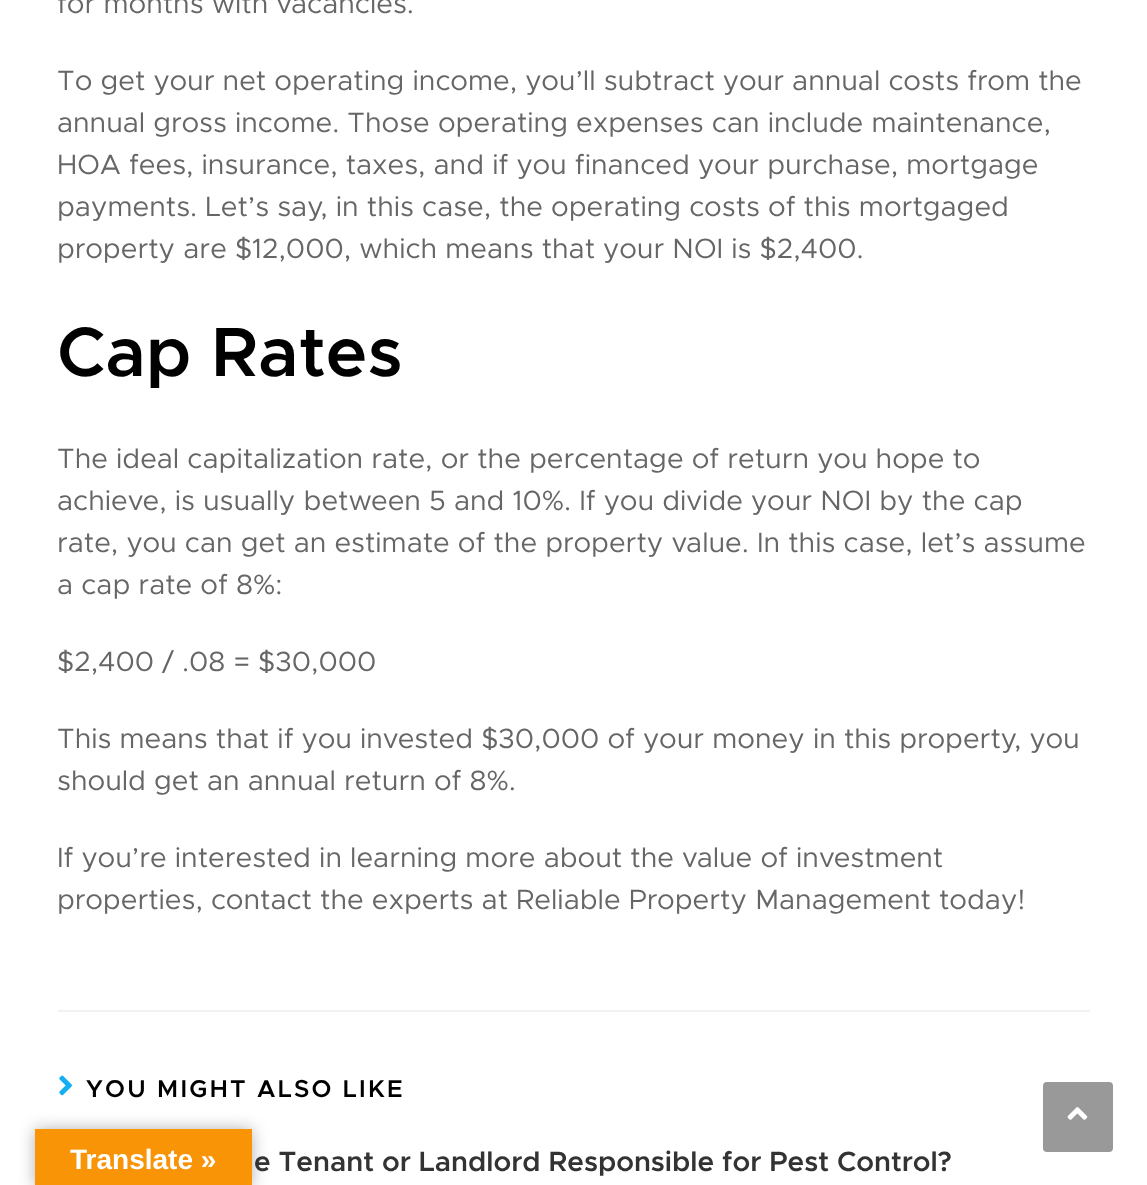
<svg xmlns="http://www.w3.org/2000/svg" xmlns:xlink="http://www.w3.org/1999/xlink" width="1147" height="1185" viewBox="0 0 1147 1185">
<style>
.cls-1{font:28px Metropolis;fill:#666666}
.cls-2{font:600 70px Metropolis;fill:#000000}
.cls-3{font:600 24.5px Metropolis;letter-spacing:2.25px;fill:#000000}
.cls-4{font:600 28px Metropolis;fill:#333333}
.cls-5{font:bold 28px Liberation Sans;fill:#ffffff}
</style>
<rect width="100%" height="100%" fill="#ffffff"/>
<rect fill="#f1f1f1" x="58" y="1010" width="1032" height="2"/>
<image xlink:href="image0.png" x="59" y="1075" width="13" height="21"/>
<rect fill="#999999" x="1043" y="1082" width="70" height="70" rx="4"/>
<image xlink:href="image1.png" x="1067" y="1107" width="21" height="13"/>
<rect fill="#000000" fill-opacity="0.3" filter="blur(8px)" x="35" y="1129" width="217" height="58"/>
<rect fill="#f89406" x="35" y="1129" width="217" height="56"/>
<text class="cls-1" x="57" y="13">for months with vacancies.</text>
<text class="cls-1"><tspan x="57" y="90">To get your net operating income, you’ll subtract your annual costs from the</tspan><tspan x="57" y="132">annual gross income. Those operating expenses can include maintenance,</tspan><tspan x="57" y="174">HOA fees, insurance, taxes, and if you financed your purchase, mortgage</tspan><tspan x="57" y="216">payments. Let’s say, in this case, the operating costs of this mortgaged</tspan><tspan x="57" y="258">property are $12,000, which means that your NOI is $2,400.</tspan></text>
<text class="cls-2" x="57" y="376">Cap Rates</text>
<text class="cls-1"><tspan x="57" y="468">The ideal capitalization rate, or the percentage of return you hope to</tspan><tspan x="57" y="510">achieve, is usually between 5 and 10%. If you divide your NOI by the cap</tspan><tspan x="57" y="552">rate, you can get an estimate of the property value. In this case, let’s assume</tspan><tspan x="57" y="594">a cap rate of 8%:</tspan></text>
<text class="cls-1" x="57" y="671">$2,400 / .08 = $30,000</text>
<text class="cls-1"><tspan x="57" y="748">This means that if you invested $30,000 of your money in this property, you</tspan><tspan x="57" y="790">should get an annual return of 8%.</tspan></text>
<text class="cls-1"><tspan x="57" y="867">If you’re interested in learning more about the value of investment</tspan><tspan x="57" y="909">properties, contact the experts at Reliable Property Management today!</tspan></text>
<text class="cls-3" x="86" y="1097">YOU MIGHT ALSO LIKE</text>
<text class="cls-4" x="254" y="1171">e Tenant or Landlord Responsible for Pest Control?</text>
<text class="cls-5" x="70" y="1169">Translate »</text>
</svg>
